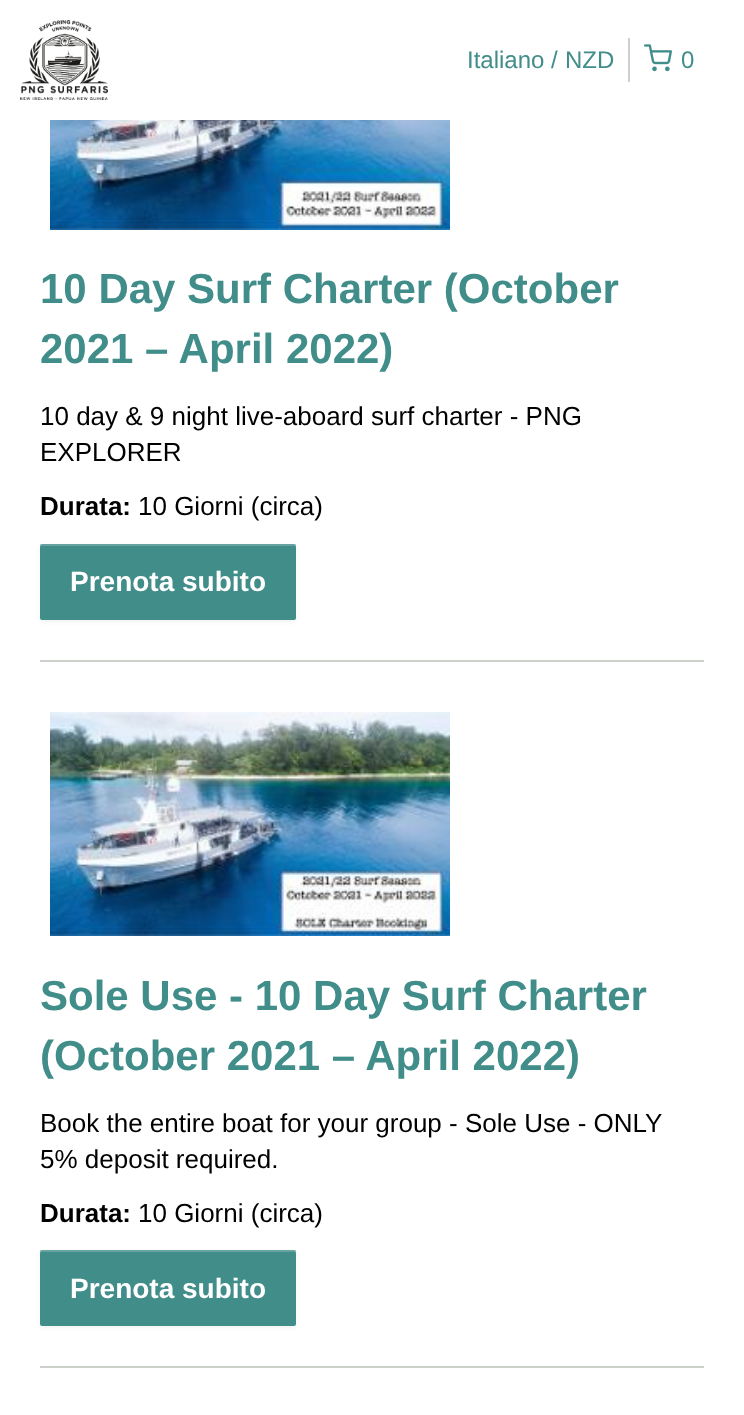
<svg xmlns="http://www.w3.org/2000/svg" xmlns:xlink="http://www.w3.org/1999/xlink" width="744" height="1415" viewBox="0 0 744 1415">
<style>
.cls-1{font:24px Liberation Sans;fill:#418d8a}
.cls-2{font:bold 42px Liberation Sans;fill:#418d8a}
.cls-3{font:26px Liberation Sans;fill:#000000}
.cls-4{font:bold 26px Liberation Sans;fill:#000000}
.cls-5{font:bold 28px Liberation Sans;fill:#ffffff}
</style>
<rect width="100%" height="100%" fill="#ffffff"/>
<image xlink:href="image0.png" x="20" y="20" width="88" height="80"/>
<rect fill="#ccd1ca" x="628" y="38" width="2" height="44"/>
<image xlink:href="image1.png" x="644" y="44" width="28" height="28"/>
<rect fill="#ccd1ca" x="40" y="660" width="664" height="2"/>
<image xlink:href="image2.png" x="50" y="120" width="400" height="110"/>
<rect fill="#000000" fill-opacity="0.05" filter="blur(2px)" x="40" y="546" width="256" height="76" rx="2"/>
<rect fill="#418d8a" x="40" y="544" width="256" height="76" rx="2"/>
<path fill="#ffffff" fill-opacity="0.2" d="M42 546H294C295 546 296 547 296 548V546C296 545 295 544 294 544H42C41 544 40 545 40 546V548C40 547 41 546 42 546Z"/>
<rect fill="#ccd1ca" x="40" y="1366" width="664" height="2"/>
<image xlink:href="image3.png" x="50" y="712" width="400" height="224"/>
<rect fill="#000000" fill-opacity="0.05" filter="blur(2px)" x="40" y="1252" width="256" height="76" rx="2"/>
<rect fill="#418d8a" x="40" y="1250" width="256" height="76" rx="2"/>
<path fill="#ffffff" fill-opacity="0.2" d="M42 1252H294C295 1252 296 1253 296 1254V1252C296 1251 295 1250 294 1250H42C41 1250 40 1251 40 1252V1254C40 1253 41 1252 42 1252Z"/>
<text class="cls-1" x="467" y="68">Italiano /</text>
<text class="cls-1" x="565" y="68">NZD</text>
<text class="cls-1" x="681" y="68">0</text>
<text class="cls-2"><tspan x="40" y="303">10 Day Surf Charter (October</tspan><tspan x="40" y="363">2021 – April 2022)</tspan></text>
<text class="cls-3"><tspan x="40" y="425">10 day &amp; 9 night live-aboard surf charter - PNG</tspan><tspan x="40" y="461">EXPLORER</tspan></text>
<text class="cls-4" x="40" y="515">Durata:</text>
<text class="cls-3" x="138" y="515">10 Giorni (circa)</text>
<text class="cls-5" x="70" y="591">Prenota subito</text>
<text class="cls-2"><tspan x="40" y="1010">Sole Use - 10 Day Surf Charter</tspan><tspan x="40" y="1070">(October 2021 – April 2022)</tspan></text>
<text class="cls-3"><tspan x="40" y="1132">Book the entire boat for your group - Sole Use - ONLY</tspan><tspan x="40" y="1168">5% deposit required.</tspan></text>
<text class="cls-4" x="40" y="1222">Durata:</text>
<text class="cls-3" x="138" y="1222">10 Giorni (circa)</text>
<text class="cls-5" x="70" y="1298">Prenota subito</text>
</svg>
